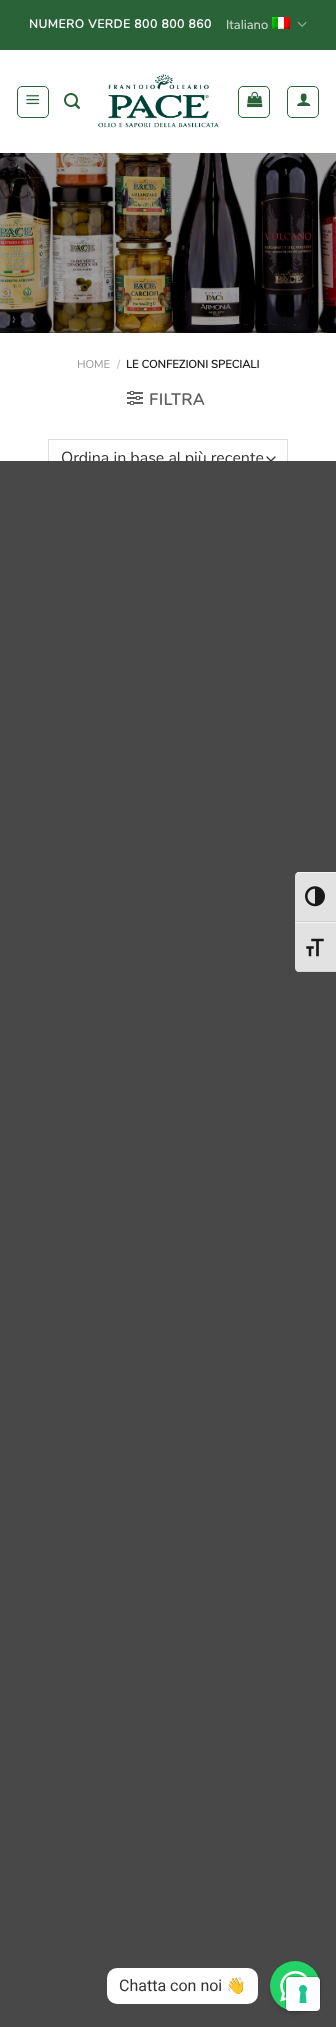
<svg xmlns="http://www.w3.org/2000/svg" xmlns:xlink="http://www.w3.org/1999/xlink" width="336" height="2027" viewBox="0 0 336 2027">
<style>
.cls-1{font:bold 12px Nunito;letter-spacing:0.6px;fill:#ffffff}
.cls-2{font:13px Nunito;fill:#d4e0d7}
.cls-3{font:11.25px Nunito;fill:#949494}
.cls-4{font:11.25px Nunito;fill:#b2b2b2}
.cls-5{font:bold 11.25px Nunito;fill:#222222}
.cls-6{font:bold 16px Nunito;letter-spacing:0.75px;fill:#606060}
.cls-7{font:16px Nunito;fill:#333333}
.cls-8{font:16px Roboto;fill:#333333}
.cls-9{font:16px Noto Color Emoji;fill:#333333}
</style>
<rect width="100%" height="100%" fill="#ffffff"/>
<rect fill="#2a6338" x="0" y="0" width="336" height="50"/>
<image xlink:href="image0.png" x="272" y="17" width="18" height="12"/>
<image xlink:href="image1.png" x="297" y="21" width="10" height="6"/>
<rect fill="none" stroke="#2a6338" x="17.5" y="86.5" width="31" height="31" rx="4.5"/>
<image xlink:href="image2.png" x="26" y="95" width="13" height="10"/>
<image xlink:href="image3.png" x="64" y="93" width="16" height="16"/>
<image xlink:href="image4.png" x="98" y="74" width="121" height="54"/>
<rect fill="none" stroke="#2a6338" x="238.5" y="86.5" width="31" height="31" rx="4.5"/>
<image xlink:href="image5.png" x="247" y="91" width="16" height="17"/>
<rect fill="none" stroke="#2a6338" x="287.5" y="86.5" width="31" height="31" rx="4.5"/>
<image xlink:href="image6.png" x="297" y="93" width="14" height="13"/>
<image xlink:href="image7.png" x="0" y="153" width="336" height="180"/>
<rect fill="#606060" fill-opacity="0.1" x="15" y="153" width="306" height="1"/>
<image xlink:href="image8.png" x="127" y="391" width="16" height="14"/>
<path fill="none" stroke="#333333" stroke-width="1.3" stroke-linecap="round" stroke-linejoin="round" d="M267 457L271 461L275 457"/>
<rect fill="none" stroke="#dddddd" x="48.5" y="439.5" width="239" height="39"/>
<text class="cls-1" x="29" y="28">NUMERO VERDE 800 800 860</text>
<text class="cls-2" x="226" y="29">Italiano</text>
<text class="cls-3" x="77" y="368">HOME</text>
<text class="cls-4" x="117" y="368">/</text>
<text class="cls-5" x="126" y="368">LE CONFEZIONI SPECIALI</text>
<text class="cls-6" x="149" y="405">FILTRA</text>
<text class="cls-7" x="61" y="463">Ordina in base al più recente</text>
<rect fill="#484848" x="0" y="461" width="336" height="1566"/>
<path fill="#e2e2e2" d="M299 872H336V922H295V876C295 874 297 872 299 872Z"/>
<path fill="#f5f5f5" d="M299 873H336V872H299C297 872 295 874 295 876C295 874 297 873 299 873Z"/>
<rect fill="#d2d2d2" x="295" y="921" width="41" height="1"/>
<image xlink:href="image9.png" x="305" y="886" width="20" height="21"/>
<path fill="#e2e2e2" d="M295 922H336V972H299C297 972 295 970 295 968Z"/>
<rect fill="#f5f5f5" x="295" y="922" width="41" height="1"/>
<path fill="#d2d2d2" d="M336 972V971H299C297 971 295 970 295 968C295 970 297 972 299 972Z"/>
<image xlink:href="image10.png" x="306" y="938" width="18" height="19"/>
<rect fill="#ffffff" x="107" y="1968" width="151" height="36" rx="10"/>
<text class="cls-8" x="119" y="1991">Chatta con noi</text>
<text class="cls-9" x="226" y="1991">👋</text>
<rect fill="#000000" fill-opacity="0.2" filter="blur(2.5px)" x="271" y="1965" width="48" height="48" rx="24"/>
<circle fill="#23d366" cx="295" cy="1986" r="25"/>
<image xlink:href="image11.png" x="280" y="1971" width="28" height="31"/>
<rect fill="none" stroke="#000000" stroke-opacity="0.15" x="285.5" y="1976.5" width="35" height="35" rx="4.5"/>
<rect fill="#ffffff" x="286" y="1977" width="34" height="34" rx="4"/>
<image xlink:href="image12.png" x="299" y="1985" width="8" height="18"/>
</svg>
